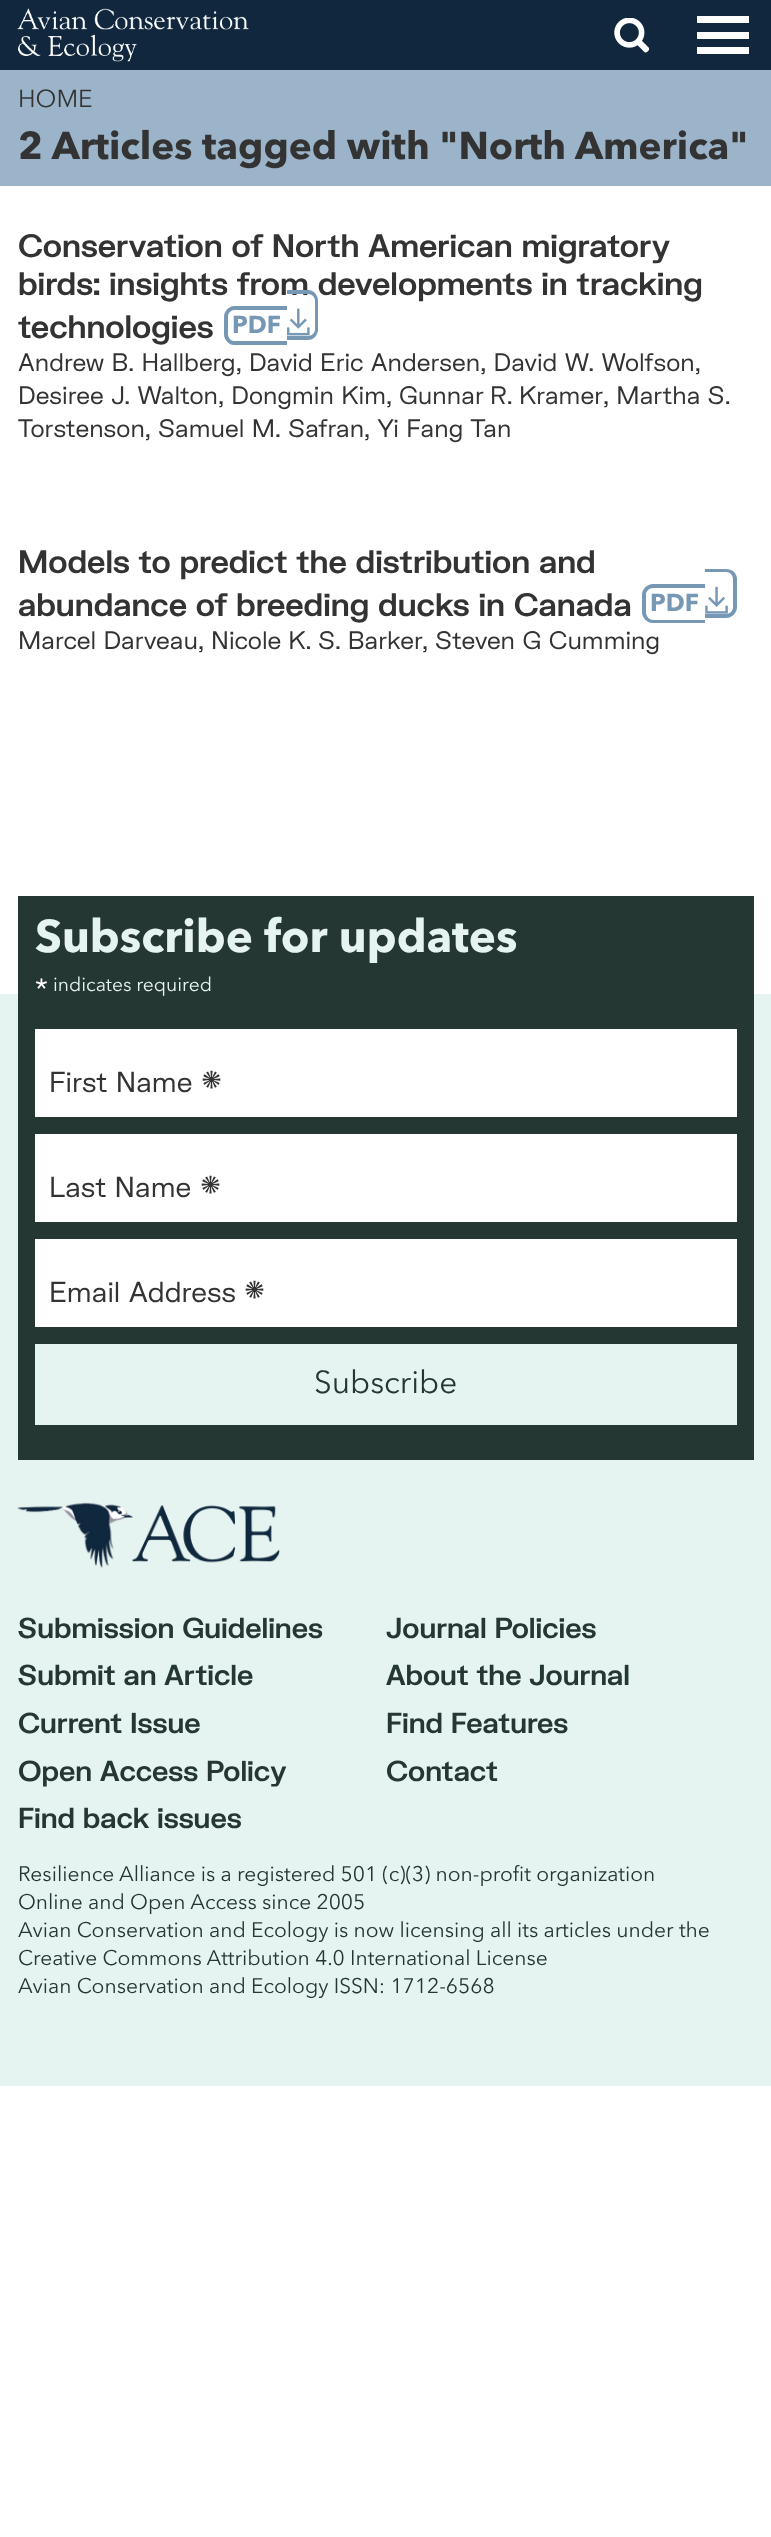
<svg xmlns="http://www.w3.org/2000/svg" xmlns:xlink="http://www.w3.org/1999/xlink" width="771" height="2537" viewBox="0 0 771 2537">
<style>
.cls-1{font:24.5px Avenir Next;fill:#333333}
.cls-2{font:bold 38.5px Avenir Next;fill:#333333}
.cls-3{font:bold 31.5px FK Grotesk;fill:#333333}
.cls-4{font:bold 24.5px Avenir Next;fill:#7798b5}
.cls-5{font:24.5px FK Grotesk;fill:#333333}
.cls-6{font:bold 45.5px Avenir Next;fill:#e5f4f0}
.cls-7{font:29px Avenir Next;fill:#ffffff}
.cls-8{font:19.25px Avenir Next;fill:#e5f4f0}
.cls-9{font:28px FK Grotesk;fill:#333333}
.cls-10{font:42px FK Grotesk;fill:#333333}
.cls-11{font:31.5px Avenir Next;fill:#253733}
.cls-12{font:bold 28px FK Grotesk;fill:#253733}
.cls-13{font:21px Avenir Next;fill:#253733}
</style>
<rect width="100%" height="100%" fill="#ffffff"/>
<rect fill="#10273d" x="0" y="0" width="771" height="70"/>
<image xlink:href="image0.png" x="17" y="8" width="232" height="54"/>
<image xlink:href="image1.png" x="614" y="18" width="35" height="35"/>
<rect fill="#ffffff" x="697" y="16" width="52" height="7"/>
<rect fill="#ffffff" x="697" y="32" width="52" height="7"/>
<rect fill="#ffffff" x="697" y="47" width="52" height="7"/>
<rect fill="#9bb4c9" x="0" y="70" width="771" height="116"/>
<path fill="#7798b5" fill-rule="evenodd" d="M234 306H287V345H234C229 345 224 340 224 334V317C224 311 229 306 234 306ZM234 310H287V341H234C231 341 228 338 228 334V317C228 313 231 310 234 310Z"/>
<path fill="#7798b5" fill-rule="evenodd" d="M653 584H705V623H653C647 623 642 618 642 612V595C642 589 647 584 653 584ZM653 588H705V620H653C649 620 646 616 646 612V595C646 591 649 588 653 588Z"/>
<path fill="#7798b5" fill-rule="evenodd" d="M705 569H726C732 569 737 573 737 579V607C737 613 732 618 726 618H705ZM705 572H726C730 572 733 575 733 579V607C733 611 730 614 726 614H705Z"/>
<image xlink:href="image3.png" x="705" y="586" width="23" height="28"/>
<rect fill="#e5f4f0" x="0" y="994" width="771" height="1092"/>
<rect fill="#253733" x="18" y="896" width="736" height="564"/>
<rect fill="#ffffff" x="35" y="1029" width="702" height="88"/>
<rect fill="#ffffff" x="35" y="1134" width="702" height="88"/>
<rect fill="#ffffff" x="35" y="1239" width="702" height="88"/>
<rect fill="#e5f4f0" x="35" y="1344" width="702" height="81"/>
<image xlink:href="image4.png" x="17" y="1502" width="263" height="66"/>
<text class="cls-1" x="18" y="107">HOME</text>
<text class="cls-2" x="18" y="159">2 Articles tagged with "North America"</text>
<text class="cls-3"><tspan x="18" y="257">Conservation of North American migratory</tspan><tspan x="18" y="295">birds: insights from developments in tracking</tspan><tspan x="18" y="338">technologies</tspan></text>
<text class="cls-4" x="232" y="333">PDF</text>
<path fill="#7798b5" fill-rule="evenodd" d="M287 290H308C314 290 318 295 318 301V329C318 335 314 340 308 340H287ZM287 294H308C312 294 315 297 315 301V329C315 333 312 336 308 336H287Z"/>
<image xlink:href="image2.png" x="287" y="308" width="23" height="28"/>
<text class="cls-5"><tspan x="18" y="371">Andrew B. Hallberg, David Eric Andersen, David W. Wolfson,</tspan><tspan x="18" y="404">Desiree J. Walton, Dongmin Kim,</tspan></text>
<text class="cls-5" x="399" y="404" word-spacing="-1">Gunnar R. Kramer</text>
<text class="cls-5" x="603" y="404">, Martha S.</text>
<text class="cls-5" x="18" y="437">Torstenson, Samuel M. Safran, Yi Fang Tan</text>
<text class="cls-3"><tspan x="18" y="573">Models to predict the distribution and</tspan><tspan x="18" y="616">abundance of breeding ducks in Canada</tspan></text>
<text class="cls-4" x="650" y="611">PDF</text>
<text class="cls-5" x="18" y="649">Marcel Darveau,</text>
<text class="cls-5" x="211" y="649" word-spacing="-0.5">Nicole K. S. Barker</text>
<text class="cls-5" x="422" y="649">, Steven G Cumming</text>
<text class="cls-6" x="35" y="952">Subscribe for updates</text>
<text class="cls-7" x="35" y="999">*</text>
<text class="cls-8" x="53" y="991">indicates required</text>
<text class="cls-9" x="49" y="1092">First Name</text>
<text class="cls-10" x="201" y="1101">*</text>
<text class="cls-9" x="49" y="1197">Last Name</text>
<text class="cls-10" x="200" y="1206">*</text>
<text class="cls-9" x="49" y="1302">Email Address</text>
<text class="cls-10" x="244" y="1311">*</text>
<text class="cls-11" x="314" y="1393">Subscribe</text>
<text class="cls-12" x="18" y="1638">Submission Guidelines</text>
<text class="cls-12" x="386" y="1638">Journal Policies</text>
<text class="cls-12" x="18" y="1685">Submit an Article</text>
<text class="cls-12" x="386" y="1685">About the Journal</text>
<text class="cls-12" x="18" y="1733">Current Issue</text>
<text class="cls-12" x="386" y="1733">Find Features</text>
<text class="cls-12" x="18" y="1781">Open Access Policy</text>
<text class="cls-12" x="386" y="1781">Contact</text>
<text class="cls-12" x="18" y="1828">Find back issues</text>
<text class="cls-13"><tspan x="18" y="1881">Resilience Alliance is a registered 501 (c)(3) non-profit organization</tspan><tspan x="18" y="1909">Online and Open Access since 2005</tspan><tspan x="18" y="1937">Avian Conservation and Ecology is now licensing all its articles under the</tspan><tspan x="18" y="1965">Creative Commons Attribution 4.0 International License</tspan><tspan x="18" y="1993">Avian Conservation and Ecology ISSN: 1712-6568</tspan></text>
</svg>
